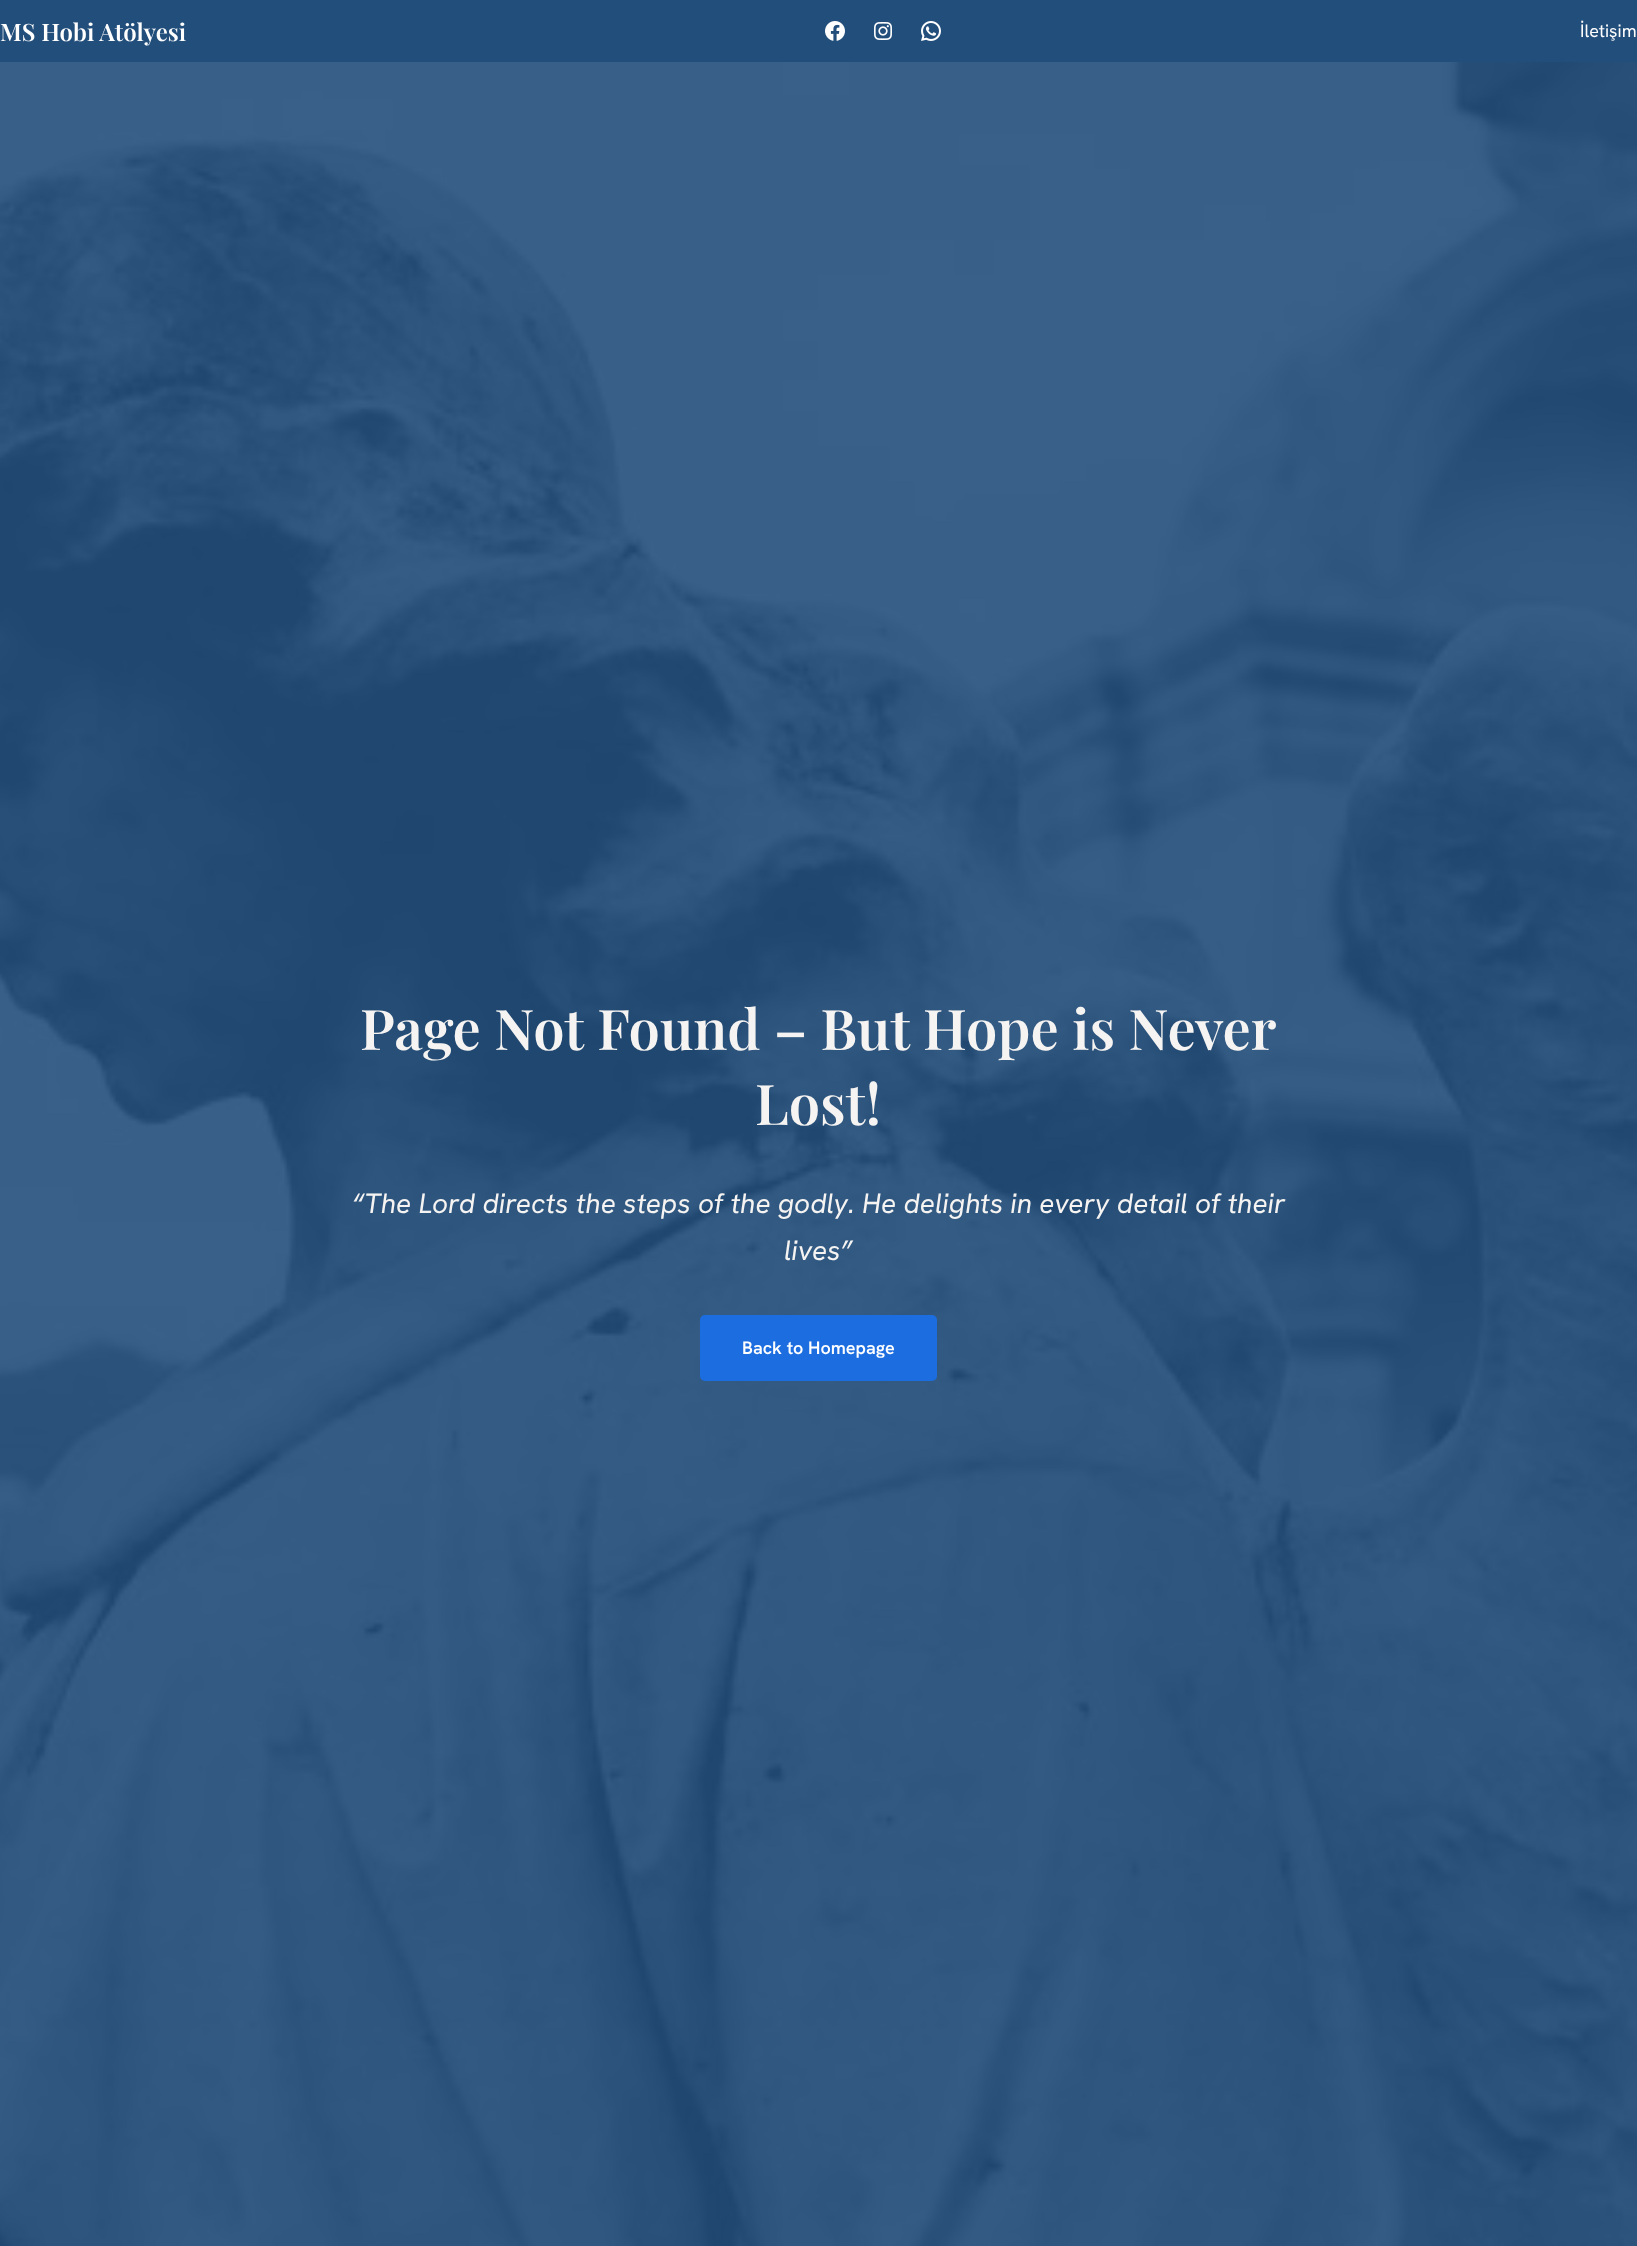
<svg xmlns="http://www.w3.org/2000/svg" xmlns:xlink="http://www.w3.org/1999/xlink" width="1637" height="2246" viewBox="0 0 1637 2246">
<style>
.cls-1{font:600 24px Playfair Display;fill:#ffffff}
.cls-2{font:18px Hanken Grotesk;fill:#ffffff}
.cls-3{font:600 56px Playfair Display;fill:#f6f4f2}
.cls-4{font:italic 28px Hanken Grotesk;fill:#f6f4f2}
.cls-5{font:600 18px Hanken Grotesk;fill:#ffffff}
</style>
<rect width="100%" height="100%" fill="#224e7b"/>
<image xlink:href="image0.png" x="825" y="21" width="20" height="20"/>
<image xlink:href="image1.png" x="874" y="22" width="18" height="18"/>
<image xlink:href="image2.png" x="921" y="21" width="20" height="20"/>
<image xlink:href="image3.png" x="0" y="62" width="1637" height="2184"/>
<rect fill="#1b6de0" stroke="#1b6de0" stroke-width="2" x="701" y="1316" width="235" height="64" rx="4"/>
<text class="cls-1" x="0" y="41">MS Hobi Atölyesi</text>
<text class="cls-2" x="1580" y="37">İletişim</text>
<text class="cls-3" x="360" y="1050">Page Not Found – But Hope is Never</text>
<text class="cls-3" x="755" y="1125">Lost!</text>
<text class="cls-4" x="352" y="1213">“The Lord directs the steps of the godly. He delights in every detail of their</text>
<text class="cls-4" x="784" y="1260">lives”</text>
<text class="cls-5" x="742" y="1354">Back to Homepage</text>
</svg>
